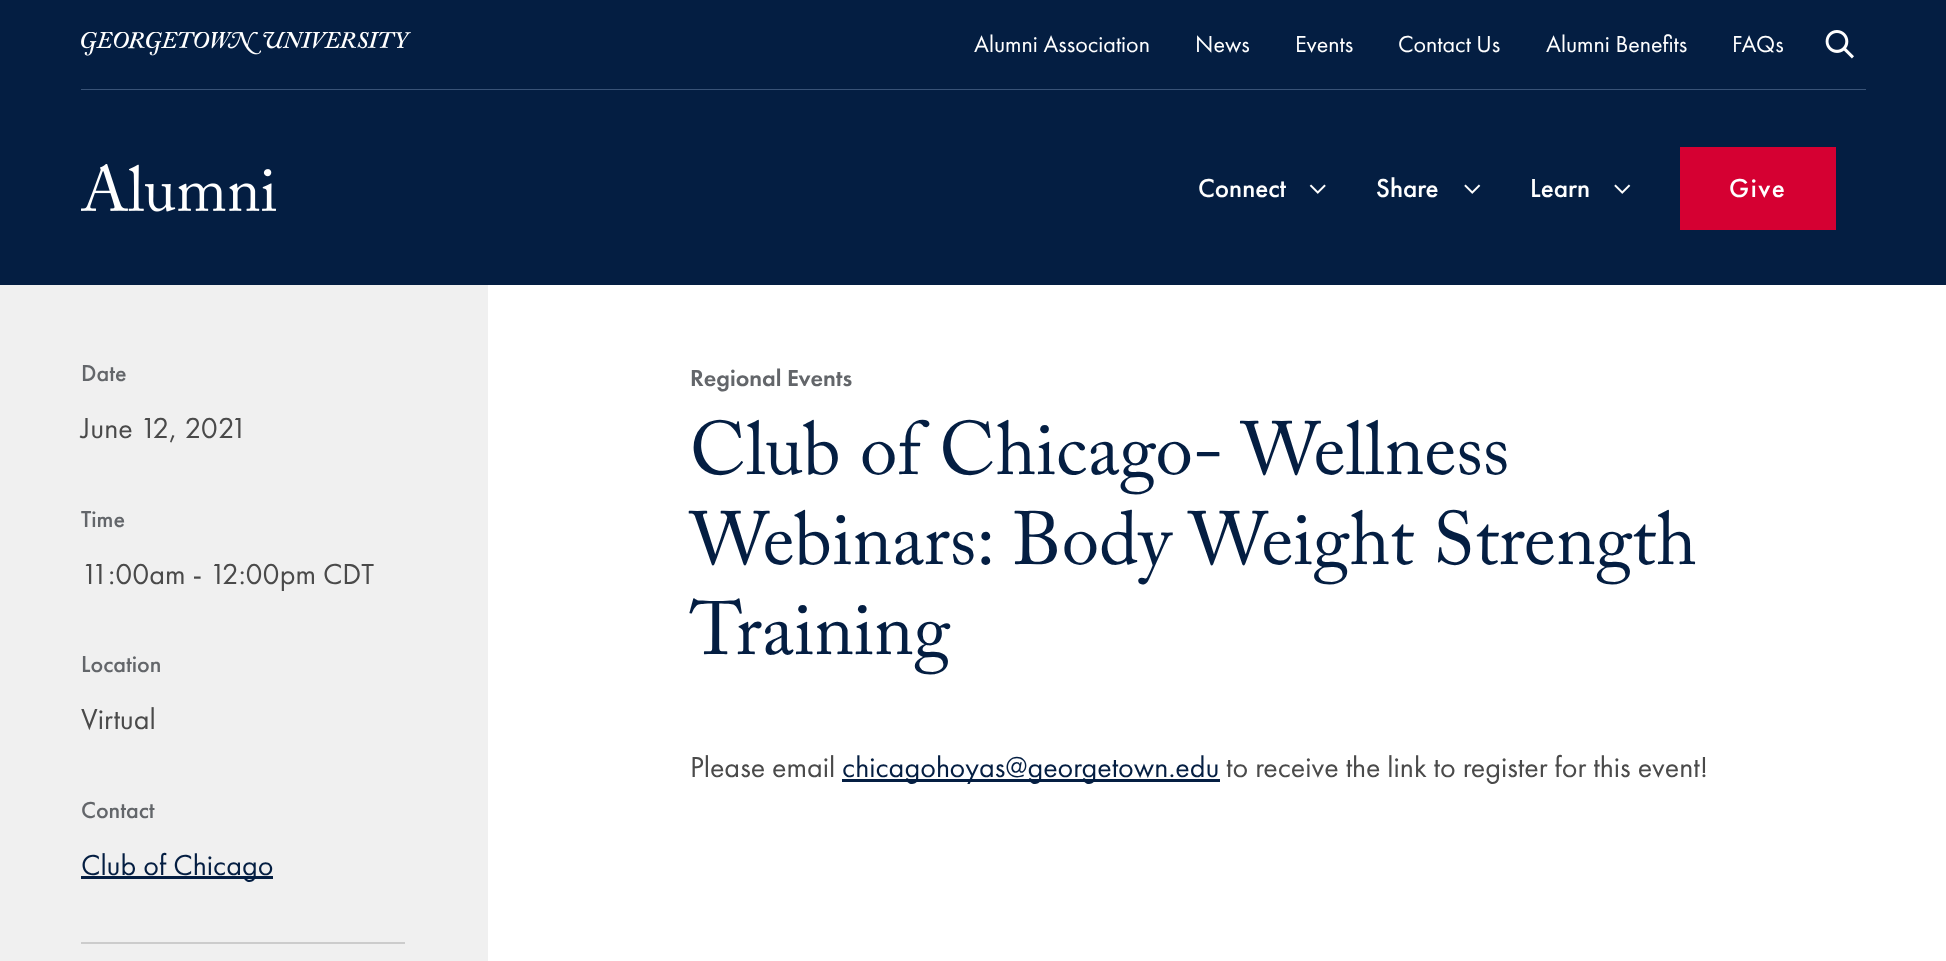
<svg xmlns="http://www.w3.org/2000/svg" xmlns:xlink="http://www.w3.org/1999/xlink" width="1946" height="961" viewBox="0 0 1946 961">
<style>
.cls-1{font:24px Futura PT;fill:#ffffff}
.cls-2{font:500 27px Futura PT;fill:#ffffff}
.cls-3{font:500 27px Futura PT;letter-spacing:1.5px;fill:#ffffff}
.cls-4{font:500 24px Futura PT;fill:#63666a}
.cls-5{font:30px Futura PT;fill:#4a4a4a}
.cls-6{font:30px Futura PT;fill:#041e42}
.cls-7{font:500 24px 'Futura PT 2';fill:#63666a}
.cls-8{font:75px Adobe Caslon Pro;fill:#041e42}
</style>
<rect width="100%" height="100%" fill="#ffffff"/>
<rect fill="#041e42" x="0" y="0" width="1946" height="285"/>
<rect fill="#395377" x="81" y="89" width="1785" height="1"/>
<image xlink:href="image0.png" x="81" y="32" width="330" height="24"/>
<image xlink:href="image1.png" x="1825" y="30" width="29" height="29"/>
<image xlink:href="image2.png" x="81" y="164" width="195" height="48"/>
<image xlink:href="image3.png" x="1309" y="184" width="17" height="10"/>
<image xlink:href="image4.png" x="1464" y="184" width="17" height="10"/>
<image xlink:href="image4.png" x="1614" y="184" width="17" height="10"/>
<rect fill="#d50032" x="1680" y="147" width="156" height="83"/>
<rect fill="#f0f0f0" x="0" y="285" width="488" height="676"/>
<rect fill="#041e42" x="81" y="876" width="192" height="3"/>
<rect fill="#cccccc" x="81" y="942" width="324" height="2"/>
<rect fill="#041e42" x="842" y="779" width="378" height="3"/>
<text class="cls-1" x="974" y="52">Alumni Association</text>
<text class="cls-1" x="1195" y="52">News</text>
<text class="cls-1" x="1295" y="52">Events</text>
<text class="cls-1" x="1398" y="52">Contact Us</text>
<text class="cls-1" x="1546" y="52">Alumni Benefits</text>
<text class="cls-1" x="1732" y="52">FAQs</text>
<text class="cls-2" x="1198" y="197">Connect</text>
<text class="cls-2" x="1376" y="197">Share</text>
<text class="cls-2" x="1530" y="197">Learn</text>
<text class="cls-3" x="1729" y="197">Give</text>
<text class="cls-4" x="81" y="381">Date</text>
<text class="cls-5" x="81" y="438">June 12, 2021</text>
<text class="cls-4" x="81" y="527">Time</text>
<text class="cls-5" x="81" y="584">11:00am - 12:00pm CDT</text>
<text class="cls-4" x="81" y="672">Location</text>
<text class="cls-5" x="81" y="729">Virtual</text>
<text class="cls-4" x="81" y="818">Contact</text>
<text class="cls-6" x="81" y="875">Club of Chicago</text>
<text class="cls-7" x="690" y="386">Regional Events</text>
<text class="cls-8"><tspan x="690" y="474">Club of Chicago- Wellness</tspan><tspan x="690" y="564">Webinars: Body Weight Strength</tspan><tspan x="690" y="654">Training</tspan></text>
<text class="cls-5" x="690" y="777">Please email</text>
<text class="cls-6" x="842" y="777">chicagohoyas@georgetown.edu</text>
<text class="cls-5" x="1226" y="777">to receive the link to register for this event!</text>
</svg>
